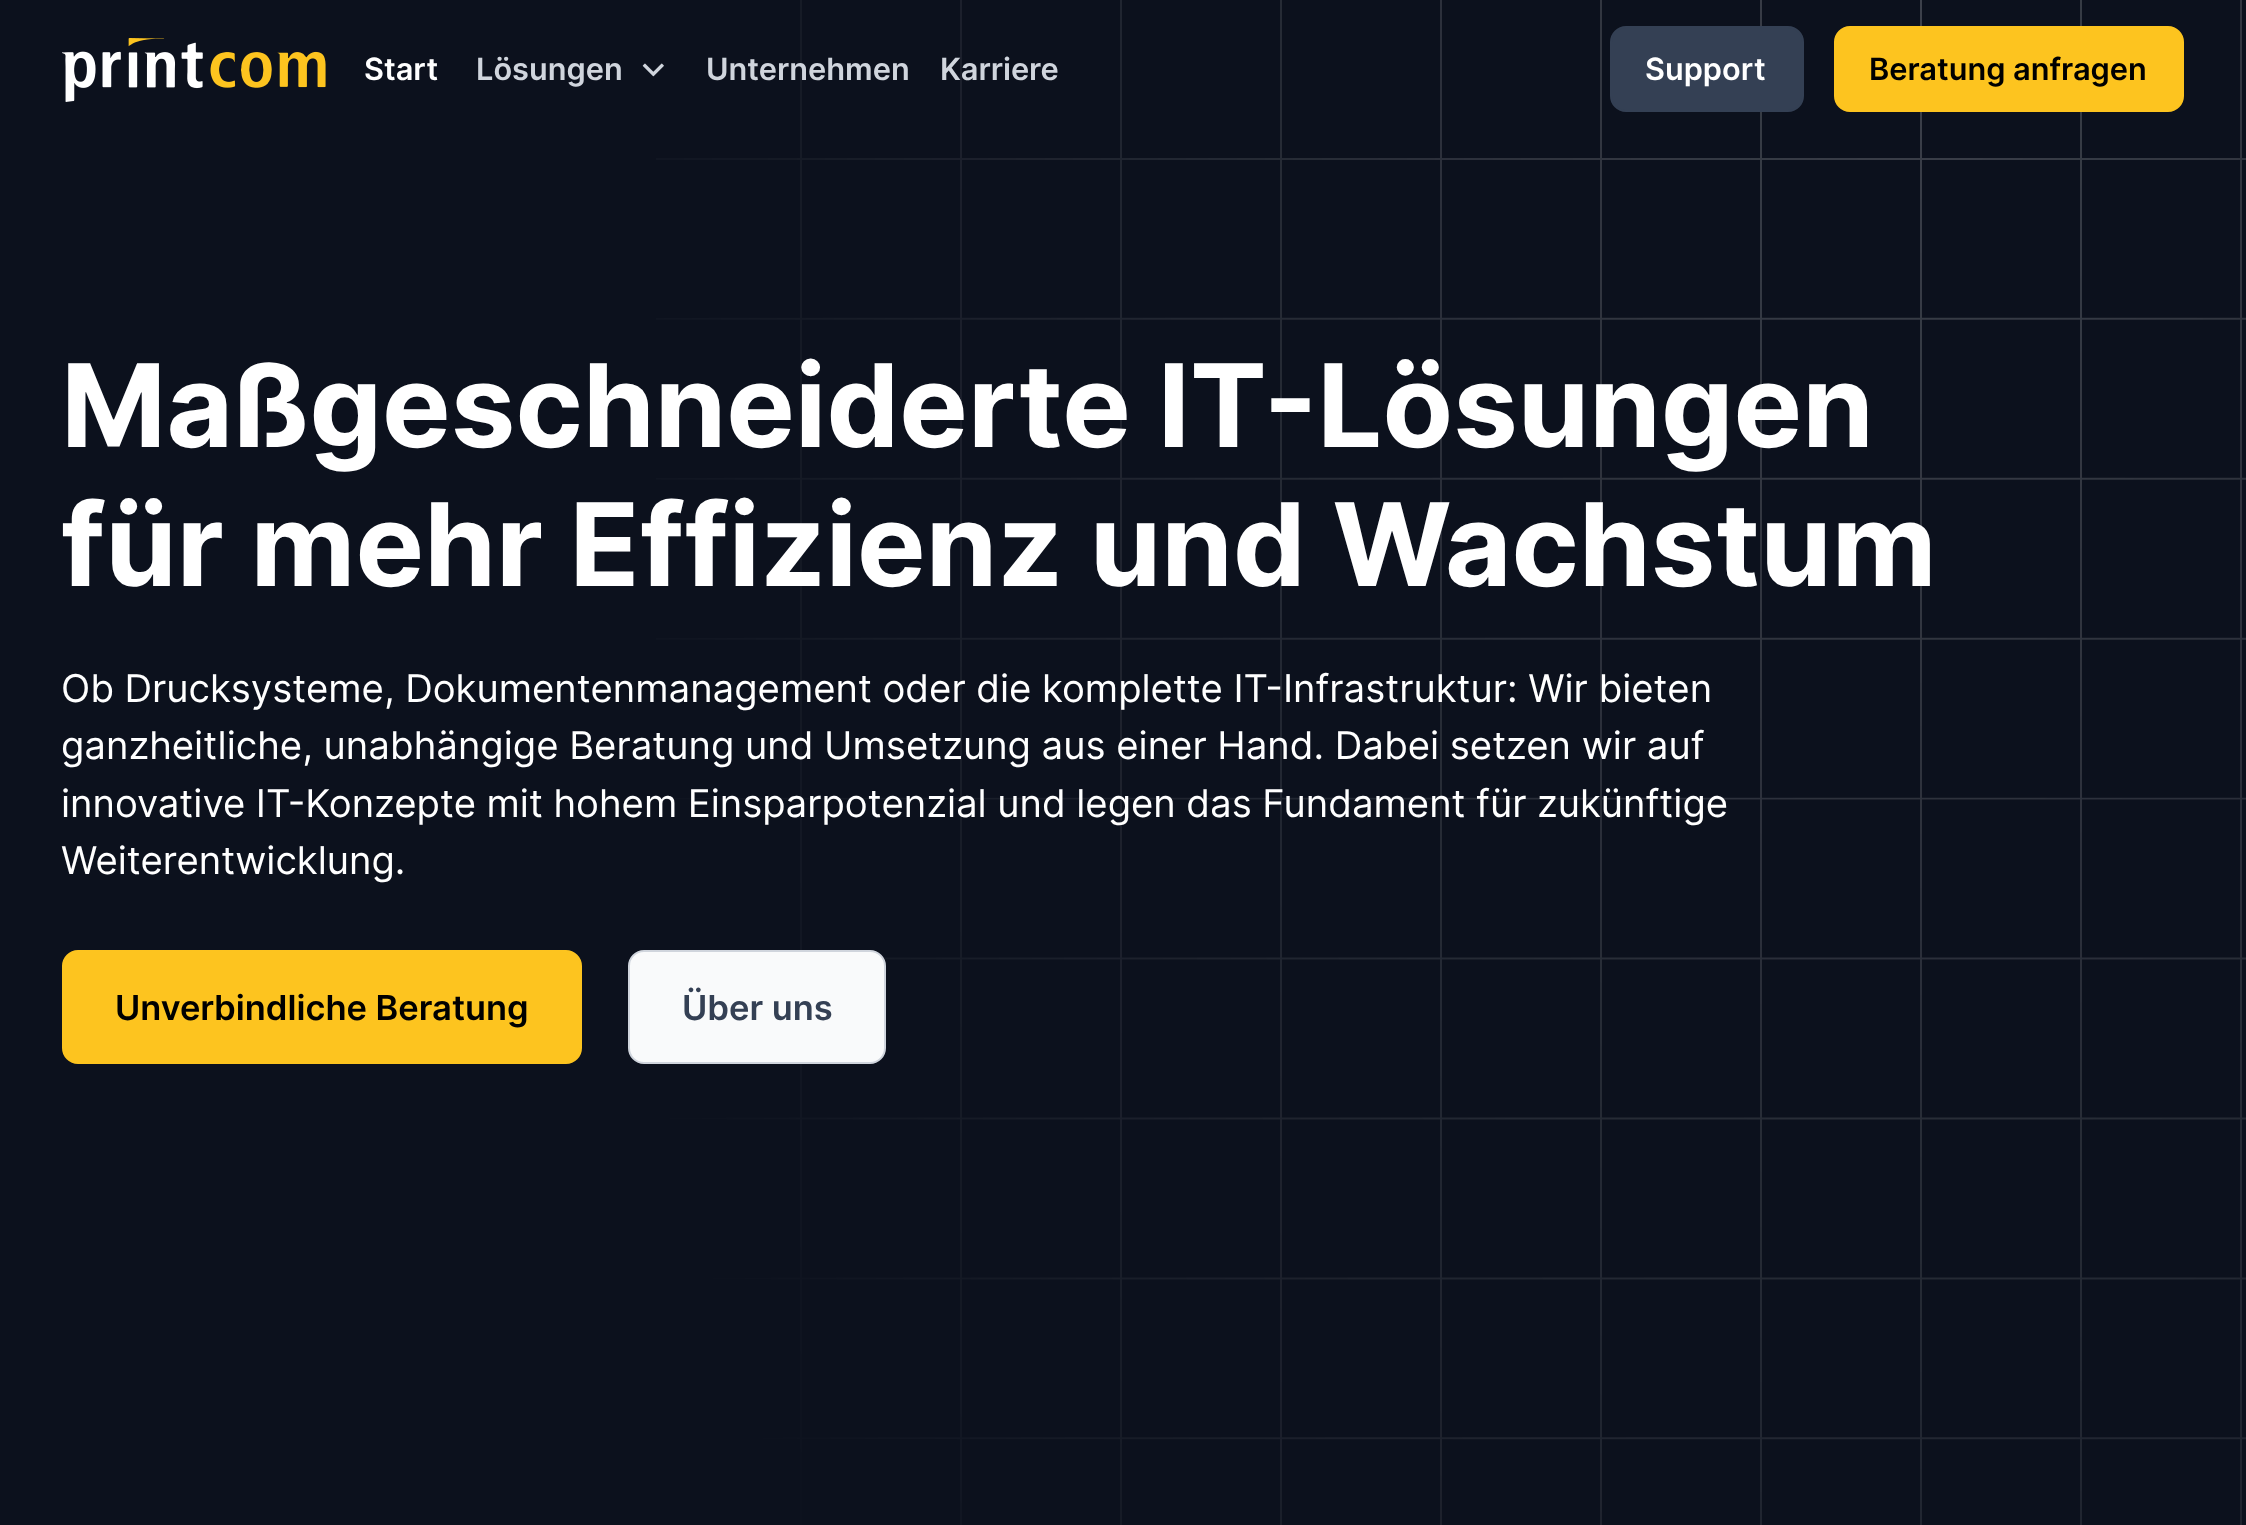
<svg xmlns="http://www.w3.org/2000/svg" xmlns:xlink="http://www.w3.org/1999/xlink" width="2246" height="1525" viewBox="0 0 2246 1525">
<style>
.cls-1{font:600 30.75px Inter;fill:#ffffff}
.cls-2{font:600 30.75px Inter;fill:#d0d5dd}
.cls-3{font:600 30.75px Inter;fill:#000000}
.cls-4{font:bold 115px Inter;fill:#ffffff}
.cls-5{font:38.35px Inter;fill:#ffffff}
.cls-6{font:600 34.5px Inter;fill:#000000}
.cls-7{font:600 34.5px Inter;fill:#344054}
</style>
<rect width="100%" height="100%" fill="#0c111d"/>
<image xlink:href="image0.png" x="62" y="38" width="264" height="64"/>
<image xlink:href="image2.png" x="656" y="0" width="1590" height="1525"/>
<image xlink:href="image1.png" x="642" y="63" width="22" height="14"/>
<rect fill="#344054" stroke="#344054" stroke-width="2" x="1611" y="27" width="192" height="84" rx="15"/>
<rect fill="#fdc41f" stroke="#fdc41f" stroke-width="2" x="1835" y="27" width="348" height="84" rx="15"/>
<rect fill="#fdc41f" stroke="#fdc41f" stroke-width="2" x="63" y="951" width="518" height="112" rx="15"/>
<rect fill="#f9fafb" stroke="#d0d5dd" stroke-width="2" x="629" y="951" width="256" height="112" rx="15"/>
<text class="cls-1" x="364" y="80">Start</text>
<text class="cls-2" x="476" y="80">Lösungen</text>
<text class="cls-2" x="706" y="80">Unternehmen</text>
<text class="cls-2" x="940" y="80">Karriere</text>
<text class="cls-1" x="1645" y="80">Support</text>
<text class="cls-3" x="1869" y="80">Beratung anfragen</text>
<text class="cls-4"><tspan x="61" y="447">Maßgeschneiderte IT-Lösungen</tspan><tspan x="61" y="586">für mehr Effizienz und Wachstum</tspan></text>
<text class="cls-5"><tspan x="61" y="702" word-spacing="-0.25">Ob Drucksysteme, Dokumentenmanagement oder die komplette IT-Infrastruktur: Wir bieten</tspan><tspan x="61" y="759" word-spacing="-0.1">ganzheitliche, unabhängige Beratung und Umsetzung aus einer Hand. Dabei setzen wir auf</tspan><tspan x="61" y="817" word-spacing="-0.25">innovative IT-Konzepte mit hohem Einsparpotenzial und legen das Fundament für zukünftige</tspan><tspan x="61" y="874">Weiterentwicklung.</tspan></text>
<text class="cls-6" x="115" y="1020">Unverbindliche Beratung</text>
<text class="cls-7" x="682" y="1020">Über uns</text>
</svg>
